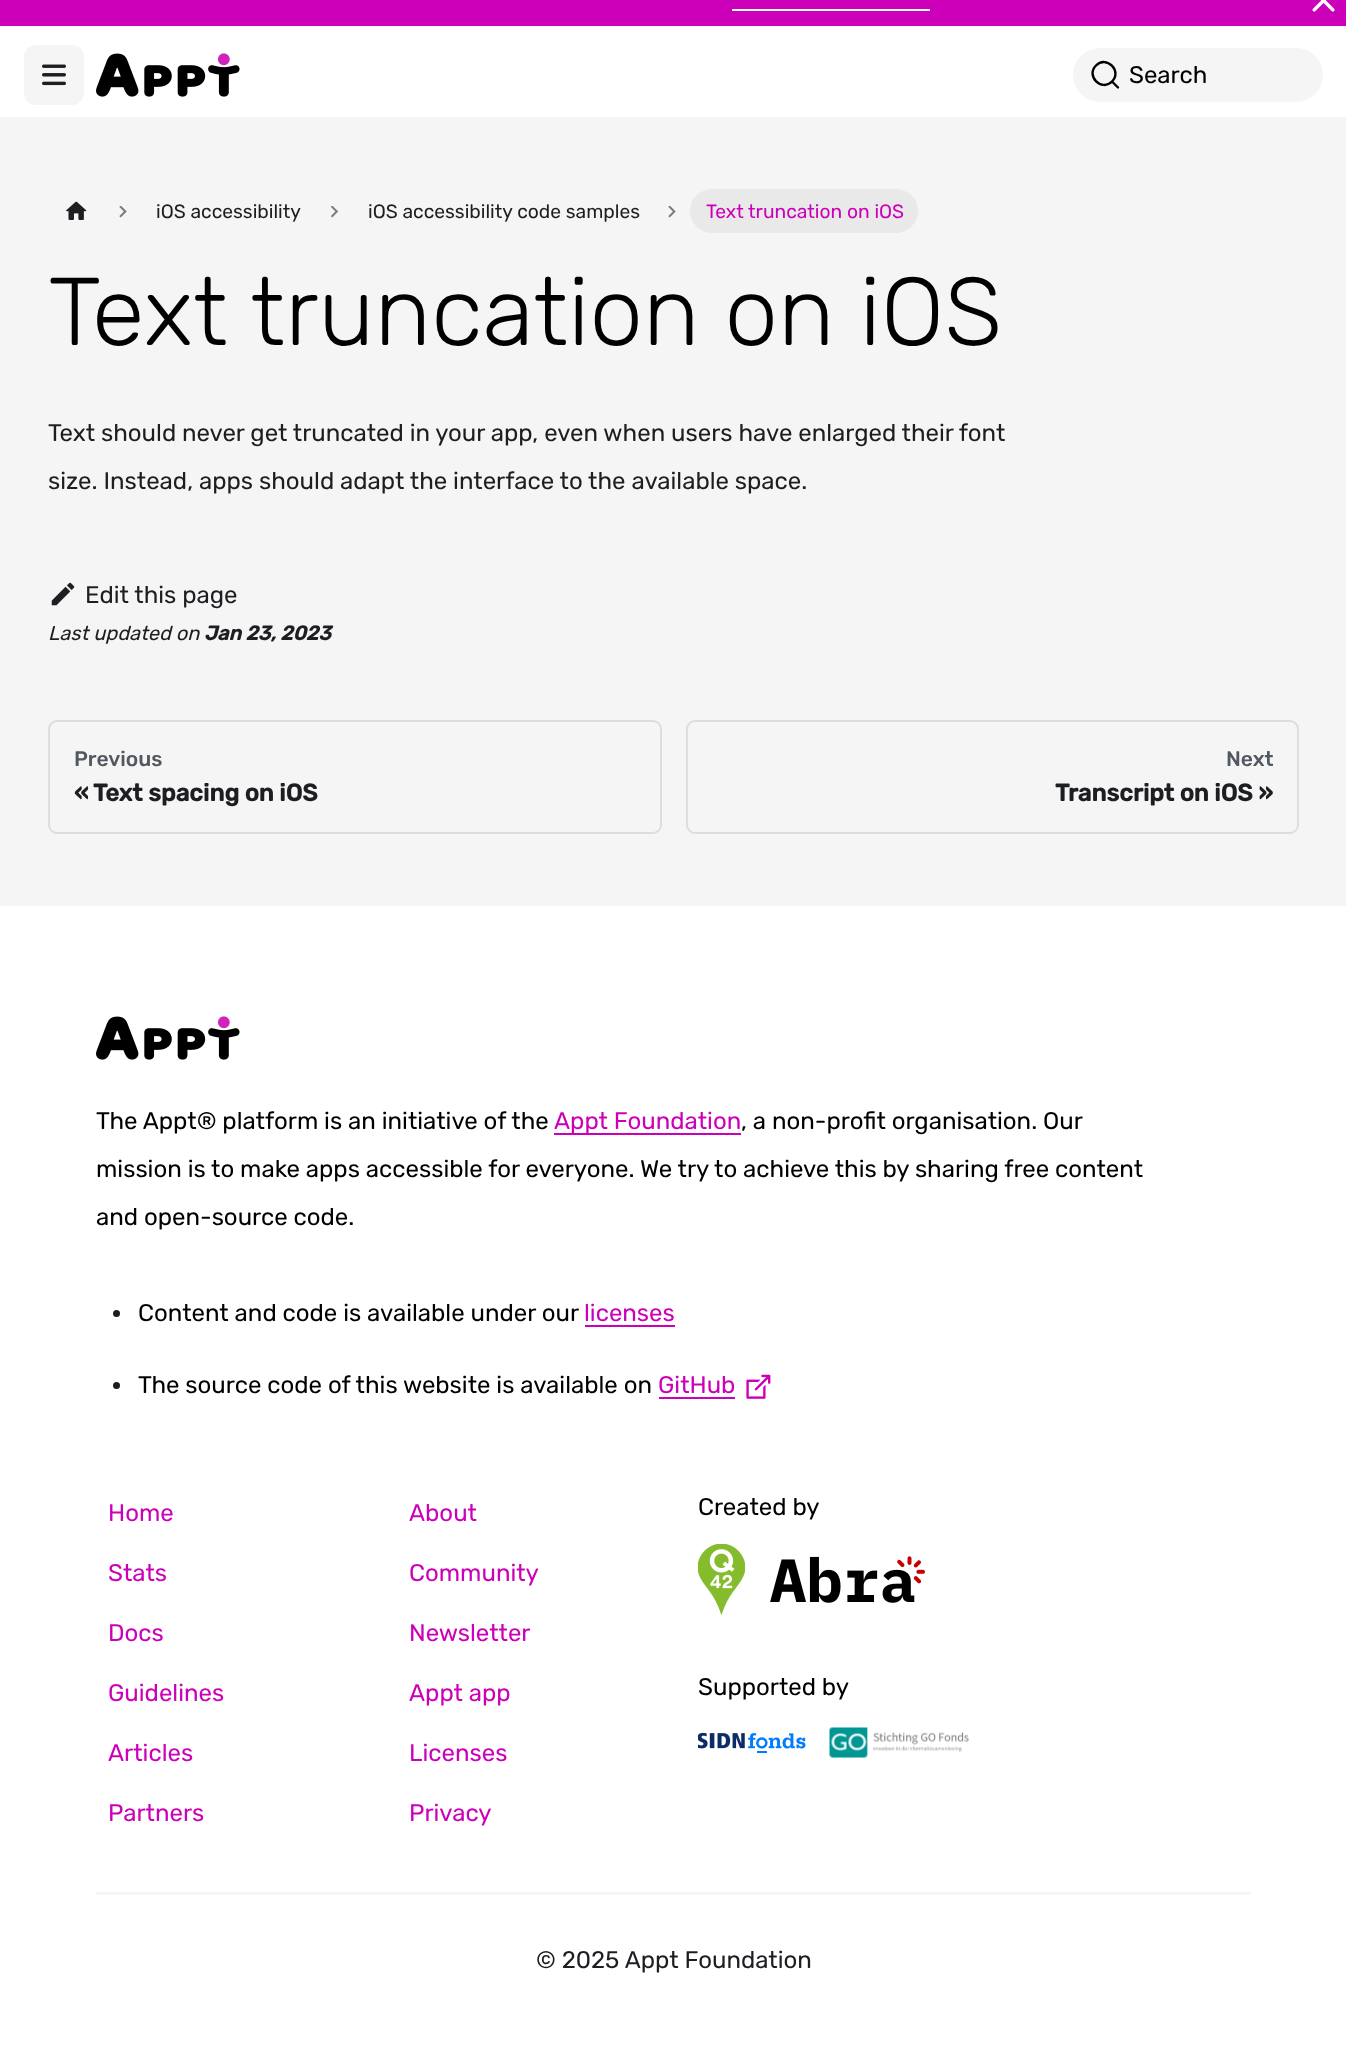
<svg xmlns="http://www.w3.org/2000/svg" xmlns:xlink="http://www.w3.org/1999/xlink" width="1346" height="2068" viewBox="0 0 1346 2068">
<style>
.cls-1{font:24px Rubik;fill:#000000}
.cls-2{font:19.25px Rubik;fill:#1c1e21}
.cls-3{font:19.25px Rubik;fill:#cc00b9}
.cls-4{font:300 96px Rubik;fill:#000000}
.cls-5{font:24px Rubik;fill:#1c1e21}
.cls-6{font:italic 20px Rubik;fill:#1c1e21}
.cls-7{font:italic bold 20px Rubik;fill:#1c1e21}
.cls-8{font:500 21px Rubik;fill:#525860}
.cls-9{font:bold 24px Rubik;fill:#1c1e21}
.cls-10{font:24px Rubik;fill:#cc00b9}
</style>
<rect width="100%" height="100%" fill="#f5f5f5"/>
<rect fill="#cc00b9" x="0" y="0" width="1346" height="26"/>
<rect fill="#ffffff" x="732" y="9" width="198" height="2"/>
<image xlink:href="image0.png" x="1312" y="0" width="23" height="12"/>
<rect fill="#ffffff" x="0" y="27" width="1346" height="90"/>
<rect fill="#f5f5f5" x="24" y="45" width="60" height="60" rx="12"/>
<image xlink:href="image1.png" x="42" y="64" width="24" height="22"/>
<image xlink:href="image2.png" x="96" y="53" width="144" height="44"/>
<rect fill="#f5f5f5" x="1073" y="48" width="250" height="54" rx="27"/>
<path fill="none" stroke="#000000" stroke-width="2.4" stroke-linecap="round" stroke-linejoin="round" d="M1112 81.5L1118 87.5L1112 81.5C1101.5 92 1085.5 76 1096 65.5C1106.5 55 1122.5 71 1112 81.5Z"/>
<image xlink:href="image3.png" x="66" y="201" width="21" height="19"/>
<image xlink:href="image4.png" x="119" y="206" width="8" height="12"/>
<image xlink:href="image5.png" x="331" y="206" width="8" height="12"/>
<image xlink:href="image4.png" x="668" y="206" width="8" height="12"/>
<rect fill="#e9e9e9" x="690" y="189" width="228" height="44" rx="22"/>
<image xlink:href="image6.png" x="51" y="582" width="24" height="24"/>
<rect fill="none" stroke="#dadde1" stroke-width="2" x="49" y="721" width="612" height="112" rx="8"/>
<rect fill="none" stroke="#dadde1" stroke-width="2" x="687" y="721" width="611" height="112" rx="8"/>
<rect fill="#ffffff" x="0" y="906" width="1346" height="1162"/>
<image xlink:href="image2.png" x="96" y="1016" width="144" height="44"/>
<rect fill="#cc00b9" x="554" y="1133" width="187" height="2"/>
<circle fill="#1c1e21" cx="116.5" cy="1313.5" r="3.5"/>
<rect fill="#cc00b9" x="585" y="1325" width="90" height="2"/>
<circle fill="#1c1e21" cx="116.5" cy="1385.5" r="3.5"/>
<rect fill="#cc00b9" x="659" y="1397" width="76" height="2"/>
<image xlink:href="image7.png" x="746" y="1374" width="25" height="25"/>
<image xlink:href="image8.png" x="698" y="1544" width="47" height="71"/>
<image xlink:href="image9.png" x="770" y="1556" width="155" height="47"/>
<image xlink:href="image10.png" x="698" y="1732" width="108" height="21"/>
<image xlink:href="image11.png" x="829" y="1727" width="140" height="31"/>
<rect fill="#f5f5f5" x="96" y="1892" width="1155" height="3"/>
<text class="cls-1" x="1129" y="83">Search</text>
<text class="cls-2" x="156" y="218">iOS accessibility</text>
<text class="cls-2" x="368" y="218">iOS accessibility code samples</text>
<text class="cls-3" x="706" y="218">Text truncation on iOS</text>
<text class="cls-4" x="48" y="345">Text truncation on iOS</text>
<text class="cls-5" x="48" y="441">Text should never get truncated in your app, even when users have enlarged their font</text>
<text class="cls-5" x="48" y="489">size. Instead, apps should adapt the interface to the available space.</text>
<text class="cls-5" x="85" y="603">Edit this page</text>
<text class="cls-6" x="48" y="640">Last updated on</text>
<text class="cls-7" x="204" y="640">Jan 23, 2023</text>
<text class="cls-8" x="74" y="766">Previous</text>
<text class="cls-9" x="74" y="801">«</text>
<text class="cls-9" x="93" y="801">Text spacing on iOS</text>
<text class="cls-8" x="1226" y="766">Next</text>
<text class="cls-9" x="1055" y="801">Transcript on iOS »</text>
<text class="cls-1" x="96" y="1129">The Appt® platform is an initiative of the</text>
<text class="cls-10" x="554" y="1129">Appt Foundation</text>
<text class="cls-1" x="741" y="1129">, a non-profit organisation. Our</text>
<text class="cls-1" x="96" y="1177">mission is to make apps accessible for everyone. We try to achieve this by sharing free content</text>
<text class="cls-1" x="96" y="1225">and open-source code.</text>
<text class="cls-1" x="138" y="1321">Content and code is available under our</text>
<text class="cls-10" x="584" y="1321">licenses</text>
<text class="cls-1" x="138" y="1393">The source code of this website is available on</text>
<text class="cls-10" x="658" y="1393">GitHub</text>
<text class="cls-10" x="108" y="1521">Home</text>
<text class="cls-10" x="108" y="1581">Stats</text>
<text class="cls-10" x="108" y="1641">Docs</text>
<text class="cls-10" x="108" y="1701">Guidelines</text>
<text class="cls-10" x="108" y="1761">Articles</text>
<text class="cls-10" x="108" y="1821">Partners</text>
<text class="cls-10" x="409" y="1521">About</text>
<text class="cls-10" x="409" y="1581">Community</text>
<text class="cls-10" x="409" y="1641">Newsletter</text>
<text class="cls-10" x="409" y="1701">Appt app</text>
<text class="cls-10" x="409" y="1761">Licenses</text>
<text class="cls-10" x="409" y="1821">Privacy</text>
<text class="cls-1" x="698" y="1515">Created by</text>
<text class="cls-1" x="698" y="1695">Supported by</text>
<text class="cls-5" x="536" y="1968">© 2025 Appt Foundation</text>
</svg>
